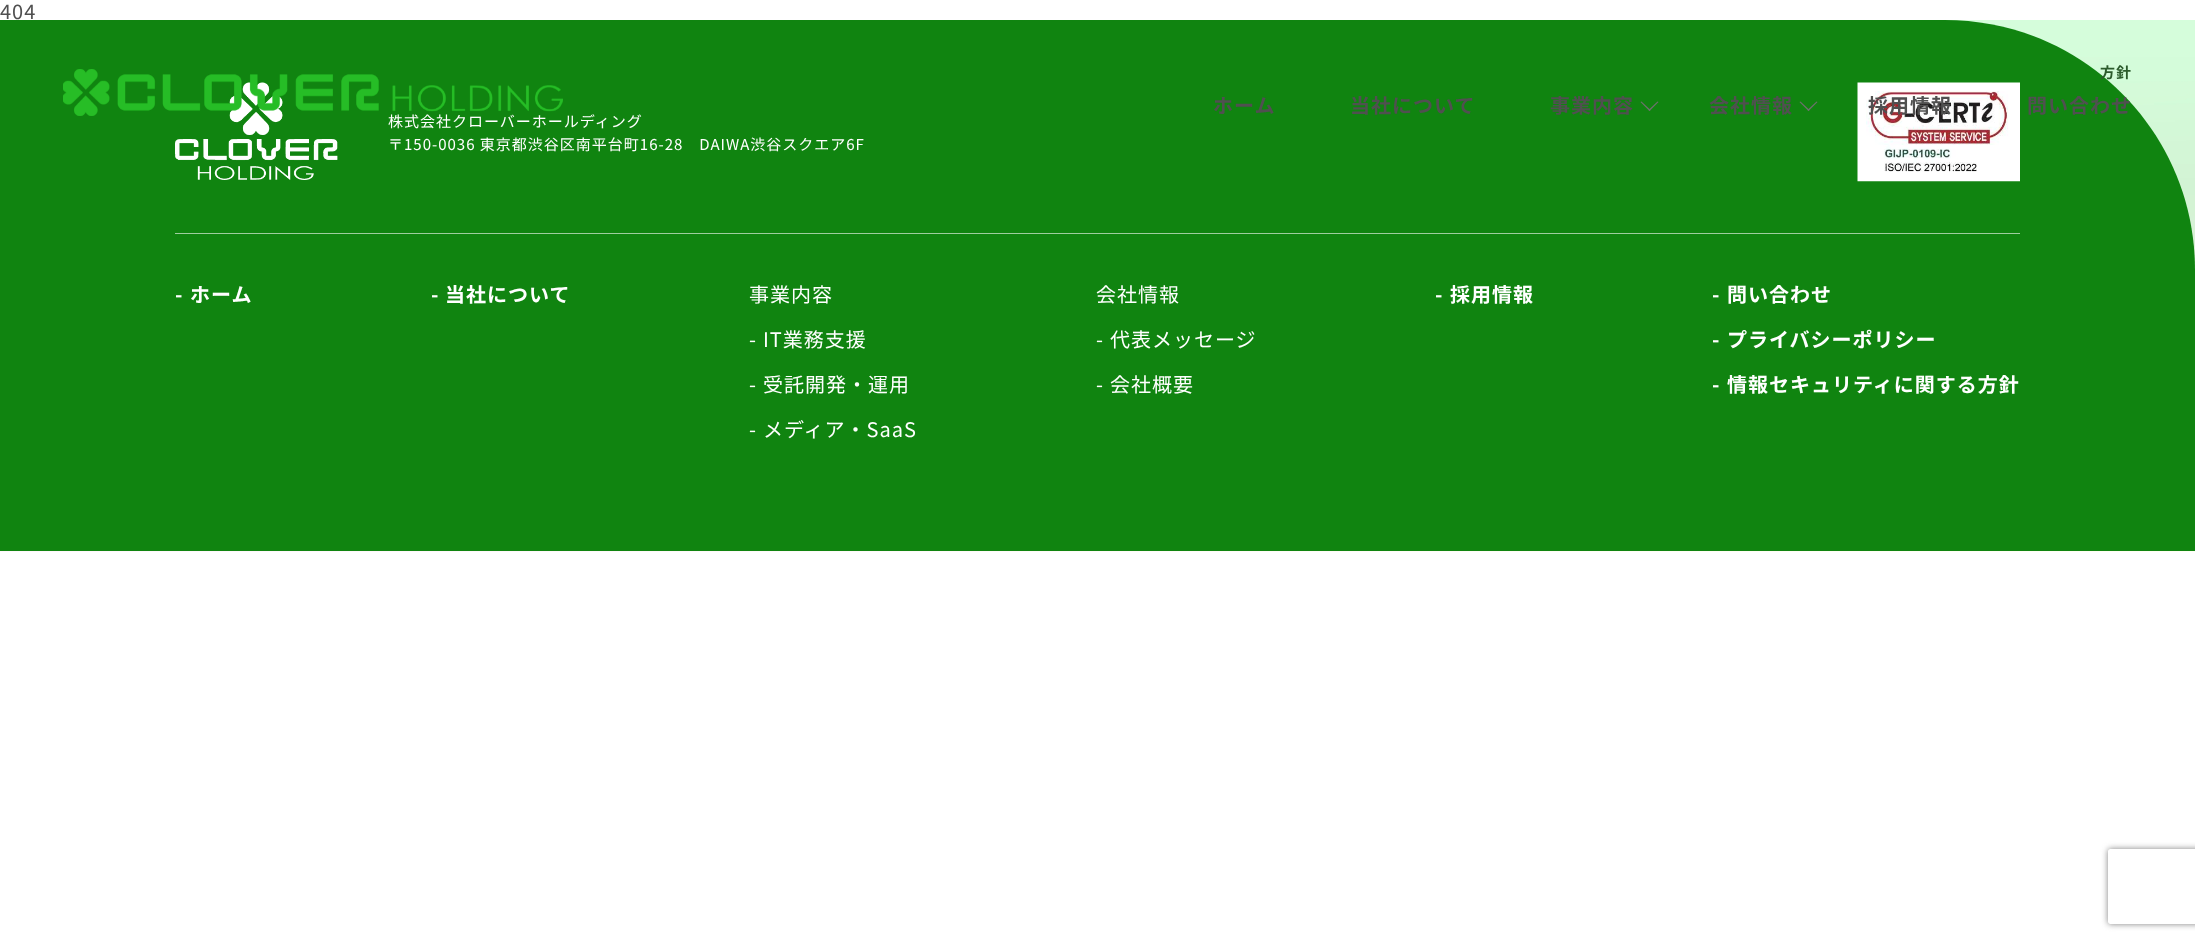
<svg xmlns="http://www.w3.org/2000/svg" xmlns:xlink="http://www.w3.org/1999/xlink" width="2195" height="941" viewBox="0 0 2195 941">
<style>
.cls-1{font:20px Noto Sans JP;letter-spacing:1px;fill:#505050}
.cls-2{font:bold 15px Noto Sans JP;letter-spacing:1px;fill:#2c5b2c}
.cls-3{font:bold 20px Noto Sans JP;letter-spacing:1px;fill:#505050}
.cls-4{font:15px Noto Sans JP;letter-spacing:1px;fill:#ffffff}
.cls-5{font:bold 20px Noto Sans JP;letter-spacing:1px;fill:#ffffff}
.cls-6{font:20px Noto Sans JP;letter-spacing:1px;fill:#ffffff}
</style>
<defs>
<clipPath id="clip1"><path d="M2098 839H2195V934H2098ZM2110.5 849H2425.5C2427 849 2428 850 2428 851.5V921.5C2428 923 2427 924 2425.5 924H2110.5C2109 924 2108 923 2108 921.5V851.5C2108 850 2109 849 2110.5 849Z" clip-rule="evenodd"/></clipPath>
</defs>
<rect width="100%" height="100%" fill="#ffffff"/>
<image xlink:href="image0.png" x="0" y="20" width="2195" height="532"/>
<path fill="#108410" d="M0 20H1945C2083 20 2195 132 2195 270V551H0Z"/>
<path fill="#707070" d="M1657.5 101.5L1658.5 102L1649.5 111L1648.5 110Z"/>
<path fill="#707070" d="M1641.5 101.5L1650.5 110L1649.5 111L1640.5 102Z"/>
<path fill="#707070" d="M1816.5 101.5L1817.5 102L1808.5 111L1807.5 110Z"/>
<path fill="#707070" d="M1800.5 101.5L1809.5 110L1808.5 111L1799.5 102Z"/>
<rect fill="#9fce9f" x="175" y="233" width="1845" height="1"/>
<image xlink:href="image2.png" x="175" y="82" width="163" height="98"/>
<image xlink:href="image3.png" x="1857" y="82" width="163" height="100"/>
<g clip-path="url(#clip1)">
<rect fill="#808080" filter="blur(3px)" x="2108" y="849" width="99" height="75" rx="2.5"/>
</g>
<text class="cls-1" x="0" y="19">404</text>
<text class="cls-2" x="2100" y="78">方針</text>
<text class="cls-3" x="1213" y="113">ホーム</text>
<text class="cls-3" x="1350" y="113">当社について</text>
<text class="cls-3" x="1550" y="113">事業内容</text>
<text class="cls-3" x="1709" y="113">会社情報</text>
<text class="cls-3" x="1868" y="113">採用情報</text>
<text class="cls-3" x="2027" y="113">問い合わせ</text>
<text class="cls-4" x="388" y="127">株式会社クローバーホールディング</text>
<image xlink:href="image1.png" x="63" y="69" width="500" height="47"/>
<text class="cls-4" x="388" y="150">〒150-0036 東京都渋谷区南平台町16-28　DAIWA渋谷スクエア6F</text>
<text class="cls-5" x="175" y="302">-</text>
<text class="cls-5" x="190" y="302">ホーム</text>
<text class="cls-5" x="431" y="302">-</text>
<text class="cls-5" x="445" y="302">当社について</text>
<text class="cls-6" x="749" y="302">事業内容</text>
<text class="cls-6" x="749" y="347">-</text>
<text class="cls-6" x="763" y="347">IT業務支援</text>
<text class="cls-6" x="749" y="392">-</text>
<text class="cls-6" x="763" y="392">受託開発・運用</text>
<text class="cls-6" x="749" y="437">-</text>
<text class="cls-6" x="763" y="437">メディア・SaaS</text>
<text class="cls-6" x="1096" y="302">会社情報</text>
<text class="cls-6" x="1096" y="347">-</text>
<text class="cls-6" x="1110" y="347">代表メッセージ</text>
<text class="cls-6" x="1096" y="392">-</text>
<text class="cls-6" x="1110" y="392">会社概要</text>
<text class="cls-5" x="1435" y="302">-</text>
<text class="cls-5" x="1450" y="302">採用情報</text>
<text class="cls-5" x="1712" y="302">-</text>
<text class="cls-5" x="1727" y="302">問い合わせ</text>
<text class="cls-5" x="1712" y="347">-</text>
<text class="cls-5" x="1727" y="347">プライバシーポリシー</text>
<text class="cls-5" x="1712" y="392">-</text>
<text class="cls-5" x="1727" y="392">情報セキュリティに関する方針</text>
</svg>
